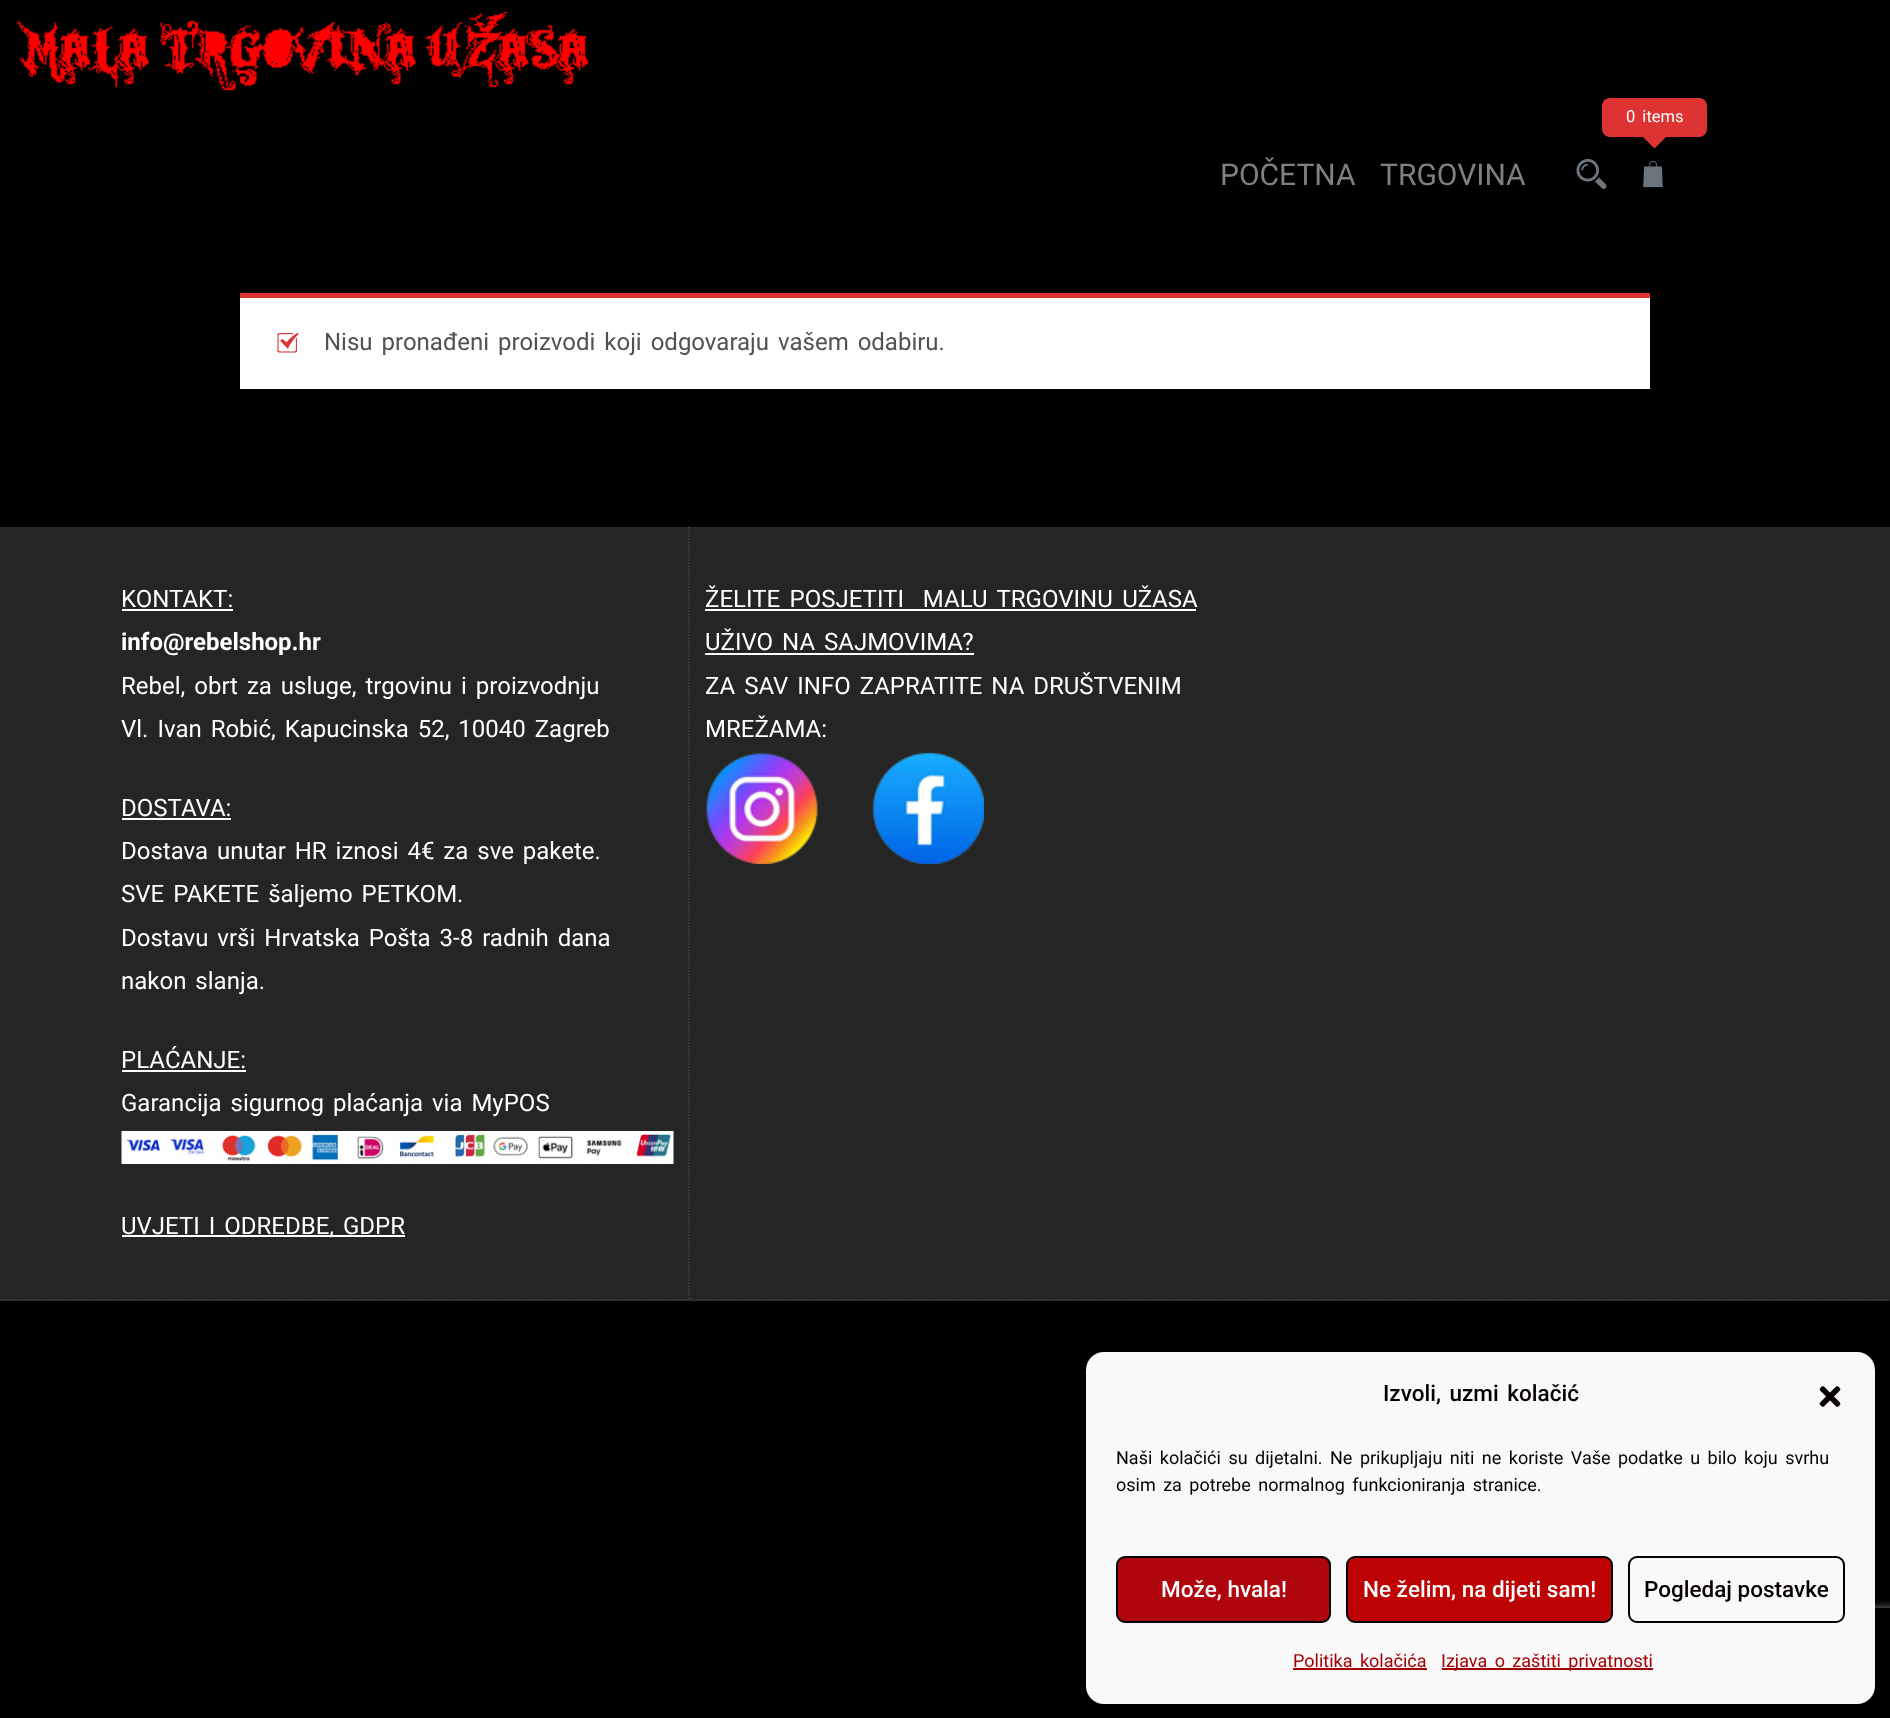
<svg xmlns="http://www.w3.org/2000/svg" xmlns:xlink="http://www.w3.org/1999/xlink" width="1890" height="1718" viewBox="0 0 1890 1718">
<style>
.cls-1{font:16.5px Roboto;fill:#ffffff}
.cls-2{font:30px Roboto;fill:#808080}
.cls-3{font:24px Roboto;fill:#515151}
.cls-4{font:24px Roboto;fill:#ffffff}
.cls-5{font:bold 24px Roboto;fill:#ffffff}
.cls-6{font:500 22.5px Roboto;fill:#060000}
.cls-7{font:18px Roboto;fill:#060000}
.cls-8{font:500 22.5px Roboto;fill:#ffffff}
.cls-9{font:18px Roboto;fill:#a20003}
</style>
<defs>
<clipPath id="clip1"><rect x="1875" y="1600" width="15" height="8"/></clipPath>
</defs>
<rect width="100%" height="100%" fill="#000000"/>
<image xlink:href="image0.png" x="17" y="11" width="572" height="80"/>
<rect fill="#dd3333" x="1602" y="98" width="105" height="39" rx="8"/>
<path fill="#dd3333" d="M1642.5 136.5H1666.5L1654.5 148.5Z"/>
<image xlink:href="image1.png" x="1643" y="160" width="20" height="28"/>
<image xlink:href="image2.png" x="1576" y="159" width="31" height="30"/>
<rect fill="#ffffff" x="240" y="298" width="1410" height="91"/>
<rect fill="#dd3333" x="240" y="293" width="1410" height="5"/>
<image xlink:href="image3.png" x="277" y="332" width="22" height="21"/>
<rect fill="#252525" x="0" y="527" width="1890" height="774"/>
<path fill="none" stroke="#464646" stroke-width="1.5" stroke-dasharray="1.5 1.5" d="M0 1300H1890"/>
<path fill="none" stroke="#464646" stroke-width="1.5" stroke-dasharray="1.5 1.5" d="M689 526.5V1299"/>
<rect fill="#ffffff" x="122" y="609" width="111" height="2"/>
<rect fill="#ffffff" x="122" y="818" width="109" height="2"/>
<rect fill="#ffffff" x="122" y="1070" width="124" height="2"/>
<image xlink:href="image4.png" x="121" y="1131" width="553" height="33"/>
<rect fill="#ffffff" x="122" y="1235" width="283" height="2"/>
<rect fill="#ffffff" x="705" y="609" width="491" height="2"/>
<rect fill="#ffffff" x="705" y="653" width="269" height="2"/>
<image xlink:href="image5.png" x="706" y="752" width="112" height="112"/>
<image xlink:href="image6.png" x="872" y="752" width="112" height="112"/>
<g clip-path="url(#clip1)">
<rect fill="#808080" filter="blur(4px)" x="1785" y="1608" width="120" height="90" rx="3"/>
</g>
<rect fill="#000000" x="1777" y="1674" width="113" height="32"/>
<rect fill="#000000" fill-opacity="0.23" filter="blur(4.5px)" x="1086" y="1361" width="789" height="352" rx="18"/>
<rect fill="#f9f9f9" x="1086" y="1352" width="789" height="352" rx="18"/>
<image xlink:href="image7.png" x="1819" y="1386" width="22" height="21"/>
<rect fill="#af050c" stroke="#040000" stroke-width="2" x="1117" y="1557" width="213" height="65" rx="8"/>
<rect fill="#bd0303" stroke="#020000" stroke-width="2" x="1347" y="1557" width="265" height="65" rx="8"/>
<rect fill="none" stroke="#020000" stroke-width="2" x="1629" y="1557" width="215" height="65" rx="8"/>
<rect fill="#a20003" x="1293" y="1668" width="134" height="2"/>
<rect fill="#a20003" x="1442" y="1668" width="211" height="2"/>
<text class="cls-1" x="1626" y="122" word-spacing="3">0 items</text>
<text class="cls-2" x="1220" y="185">POČETNA</text>
<text class="cls-2" x="1380" y="185">TRGOVINA</text>
<text class="cls-3" x="324" y="350" word-spacing="3">Nisu pronađeni proizvodi koji odgovaraju vašem odabiru.</text>
<text class="cls-4" x="121" y="607">KONTAKT:</text>
<text class="cls-5" x="121" y="650">info@rebelshop.hr</text>
<text class="cls-4"><tspan x="121" y="694" word-spacing="3">Rebel, obrt za usluge, trgovinu i proizvodnju</tspan><tspan x="121" y="737" word-spacing="3">Vl. Ivan Robić, Kapucinska 52, 10040 Zagreb</tspan></text>
<text class="cls-4"><tspan x="121" y="816">DOSTAVA:</tspan><tspan x="121" y="859" word-spacing="3">Dostava unutar HR iznosi 4€ za sve pakete.</tspan><tspan x="121" y="902" word-spacing="3">SVE PAKETE šaljemo PETKOM.</tspan><tspan x="121" y="946" word-spacing="3">Dostavu vrši Hrvatska Pošta 3-8 radnih dana</tspan><tspan x="121" y="989" word-spacing="3">nakon slanja.</tspan></text>
<text class="cls-4"><tspan x="121" y="1068">PLAĆANJE:</tspan><tspan x="121" y="1111" word-spacing="3">Garancija sigurnog plaćanja via MyPOS</tspan></text>
<text class="cls-4" x="121" y="1234" word-spacing="3">UVJETI I ODREDBE, GDPR</text>
<text class="cls-4" xml:space="preserve"><tspan x="705" y="607" word-spacing="3.5">ŽELITE POSJETITI  MALU TRGOVINU UŽASA</tspan><tspan x="705" y="650" word-spacing="3">UŽIVO NA SAJMOVIMA?</tspan><tspan x="705" y="694" word-spacing="3">ZA SAV INFO ZAPRATITE NA DRUŠTVENIM</tspan><tspan x="705" y="737">MREŽAMA:</tspan></text>
<text class="cls-6" x="1383" y="1401" word-spacing="3">Izvoli, uzmi kolačić</text>
<text class="cls-7"><tspan x="1116" y="1464" word-spacing="3">Naši kolačići su dijetalni. Ne prikupljaju niti ne koriste Vaše podatke u bilo koju svrhu</tspan><tspan x="1116" y="1491" word-spacing="3">osim za potrebe normalnog funkcioniranja stranice.</tspan></text>
<text class="cls-8" x="1161" y="1597">Može, hvala!</text>
<text class="cls-8" x="1363" y="1597">Ne želim, na dijeti sam!</text>
<text class="cls-6" x="1644" y="1597">Pogledaj postavke</text>
<text class="cls-9" x="1293" y="1667" word-spacing="3">Politika kolačića</text>
<text class="cls-9" x="1441" y="1667" word-spacing="3">Izjava o zaštiti privatnosti</text>
</svg>
